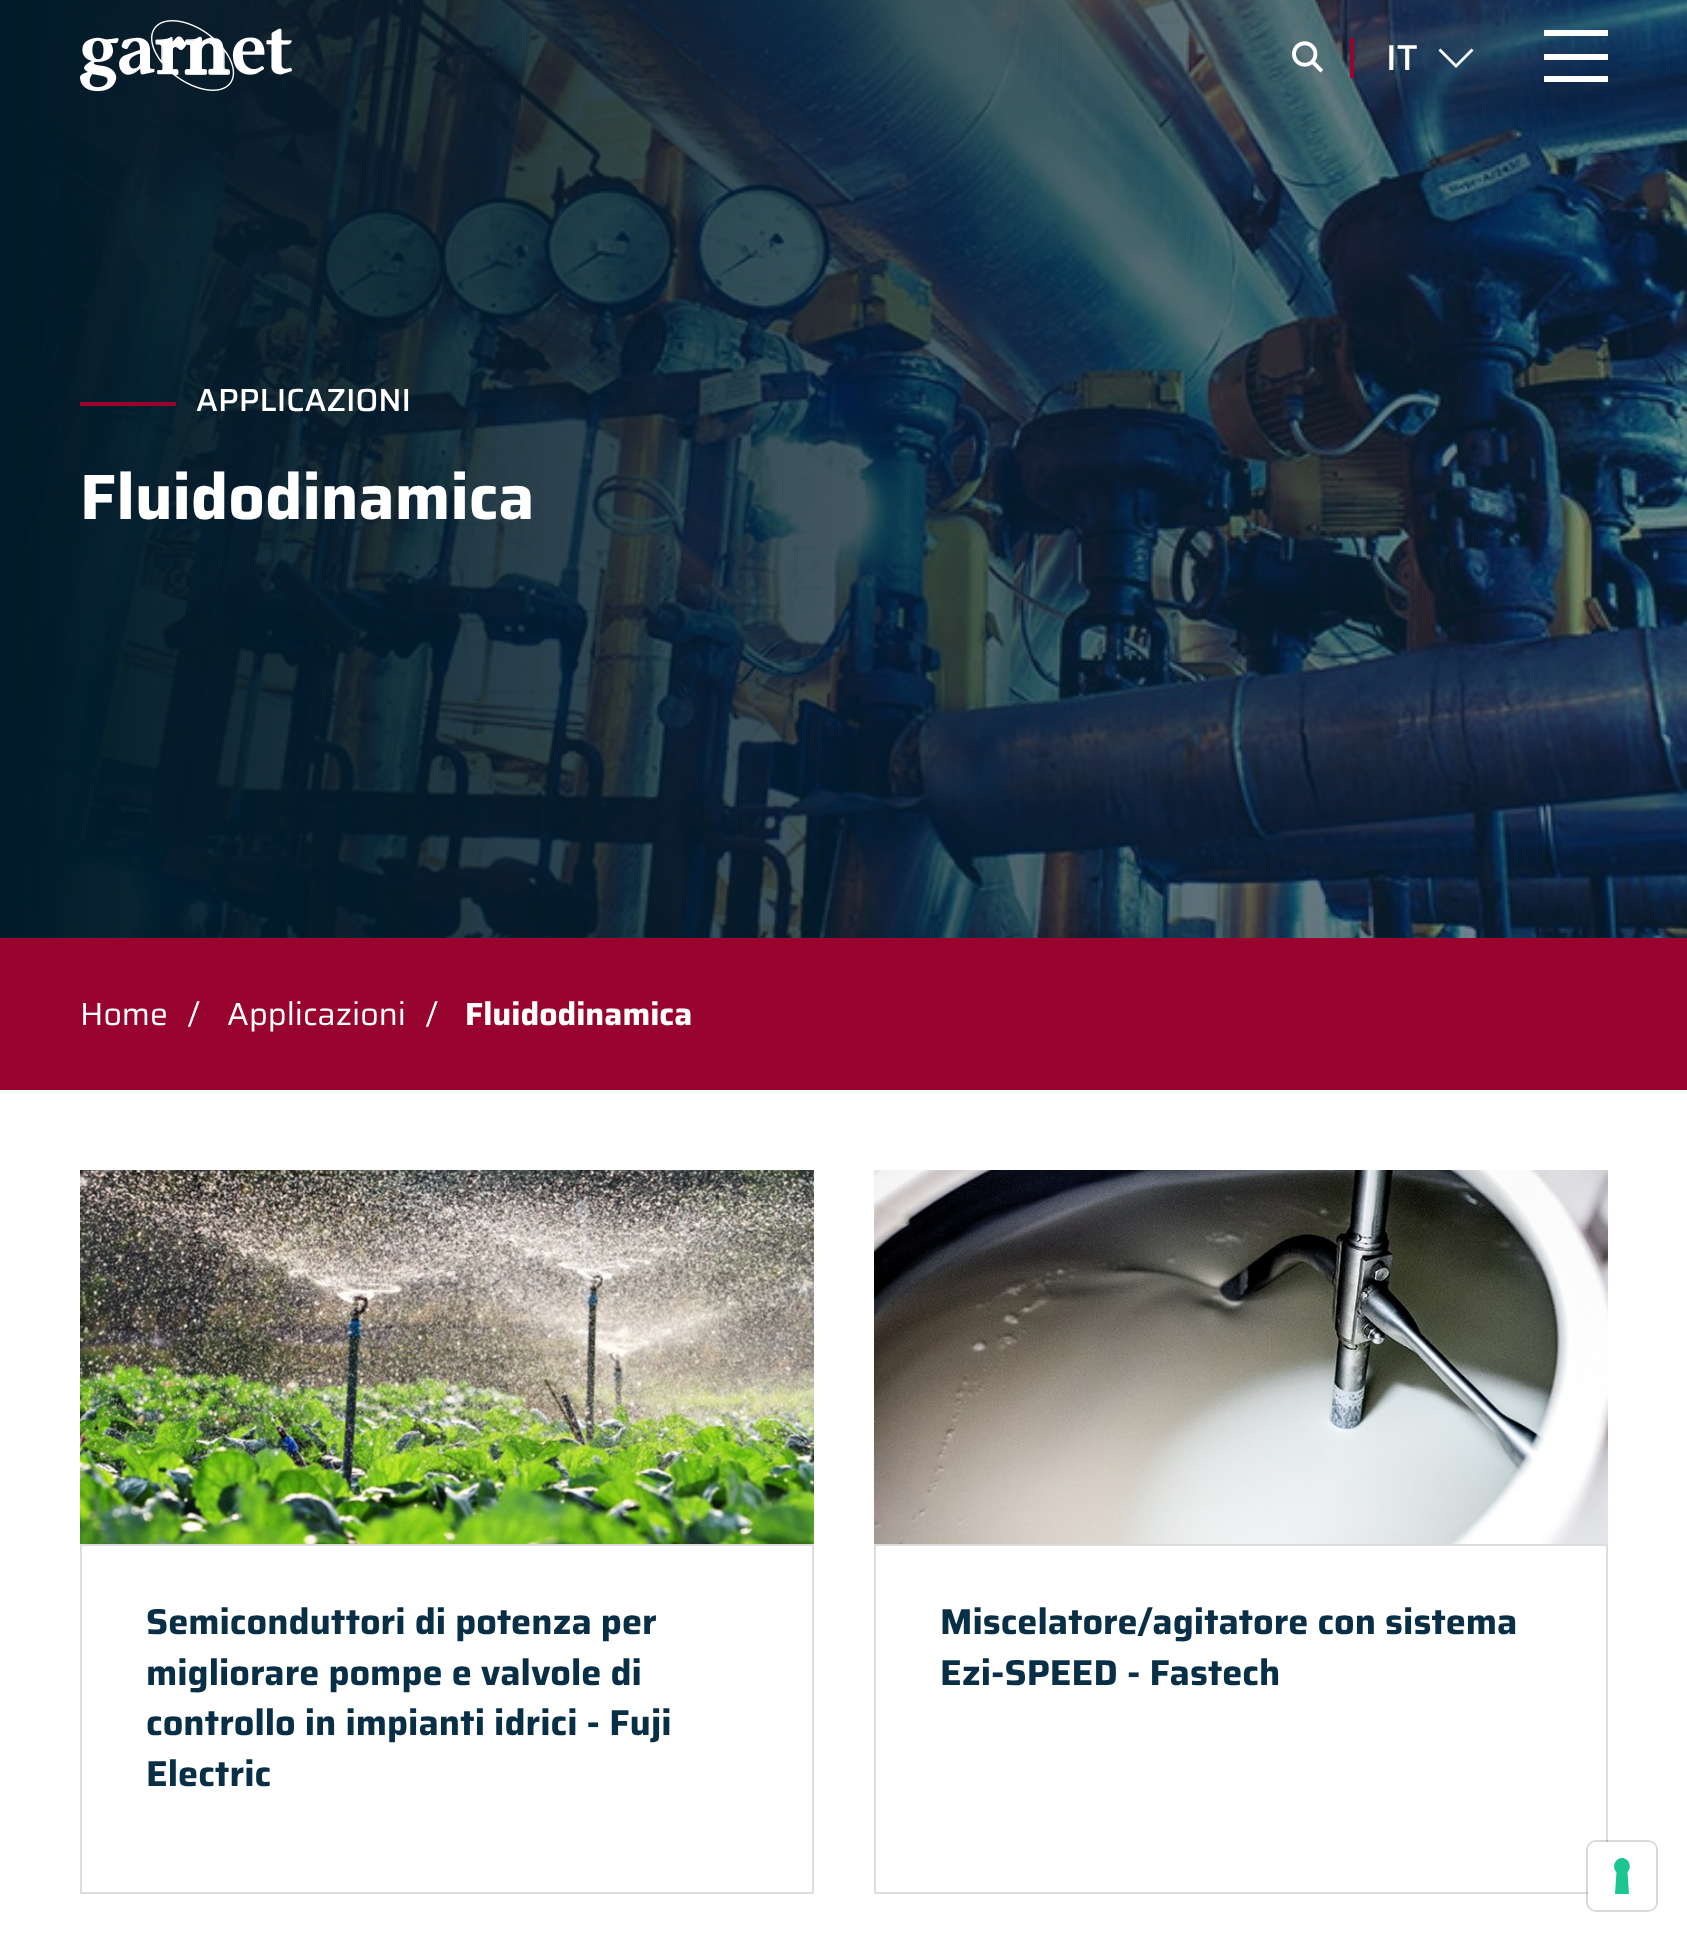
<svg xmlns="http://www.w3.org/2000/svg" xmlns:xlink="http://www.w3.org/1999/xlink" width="1687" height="1942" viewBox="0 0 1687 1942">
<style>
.cls-1{font:500 36px Saira;fill:#ffffff}
.cls-2{font:500 32px Saira;fill:#ffffff}
.cls-3{font:bold 64px Saira;fill:#ffffff}
.cls-4{font:32px Saira;fill:#ffffff}
.cls-5{font:bold 32px Saira;fill:#ffffff}
.cls-6{font:bold 36px Saira;fill:#082f45}
</style>
<rect width="100%" height="100%" fill="#ffffff"/>
<image xlink:href="image2.png" x="0" y="0" width="1687" height="938"/>
<image xlink:href="image0.png" x="80" y="20" width="212" height="72"/>
<image xlink:href="image1.png" x="1292" y="41" width="32" height="32"/>
<rect fill="#99042e" x="1350" y="38" width="4" height="40"/>
<path fill="#ffffff" d="M1456 68L1438.5 50.5L1440.5 48.5L1456 64L1471.5 48.5L1473.5 50.5Z"/>
<rect fill="#ffffff" x="1544" y="54" width="64" height="6"/>
<rect fill="#ffffff" x="1544" y="30" width="64" height="6"/>
<rect fill="#ffffff" x="1544" y="76" width="64" height="6"/>
<rect fill="#99042e" x="80" y="402" width="96" height="4"/>
<rect fill="#99042e" x="0" y="938" width="1687" height="152"/>
<image xlink:href="image3.png" x="80" y="1170" width="734" height="374"/>
<rect fill="none" stroke="#dddddd" stroke-width="2" x="81" y="1545" width="732" height="348"/>
<image xlink:href="image4.png" x="874" y="1170" width="734" height="374"/>
<rect fill="none" stroke="#dddddd" stroke-width="2" x="875" y="1545" width="732" height="348"/>
<rect fill="none" stroke="#000000" stroke-opacity="0.15" stroke-width="2" x="1587" y="1841" width="70" height="70" rx="9"/>
<rect fill="#ffffff" x="1588" y="1842" width="68" height="68" rx="8"/>
<path fill="#1cc691" fill-rule="evenodd" d="M1622 1858C1629 1858 1632.5 1867.5 1627.5 1872L1629 1894H1615L1616.5 1872C1611.5 1867.5 1615 1858 1622 1858Z"/>
<text class="cls-1" x="1386" y="70">IT</text>
<text class="cls-2" x="196" y="411">APPLICAZIONI</text>
<text class="cls-3" x="80" y="519">Fluidodinamica</text>
<text class="cls-4" x="80" y="1025">Home</text>
<text class="cls-4" x="188" y="1025">/</text>
<text class="cls-4" x="227" y="1025">Applicazioni</text>
<text class="cls-4" x="426" y="1025">/</text>
<text class="cls-5" x="465" y="1025">Fluidodinamica</text>
<text class="cls-6"><tspan x="146" y="1634">Semiconduttori di potenza per</tspan><tspan x="146" y="1685">migliorare pompe e valvole di</tspan><tspan x="146" y="1735">controllo in impianti idrici - Fuji</tspan><tspan x="146" y="1786">Electric</tspan></text>
<text class="cls-6"><tspan x="940" y="1634">Miscelatore/agitatore con sistema</tspan><tspan x="940" y="1685">Ezi-SPEED - Fastech</tspan></text>
</svg>
